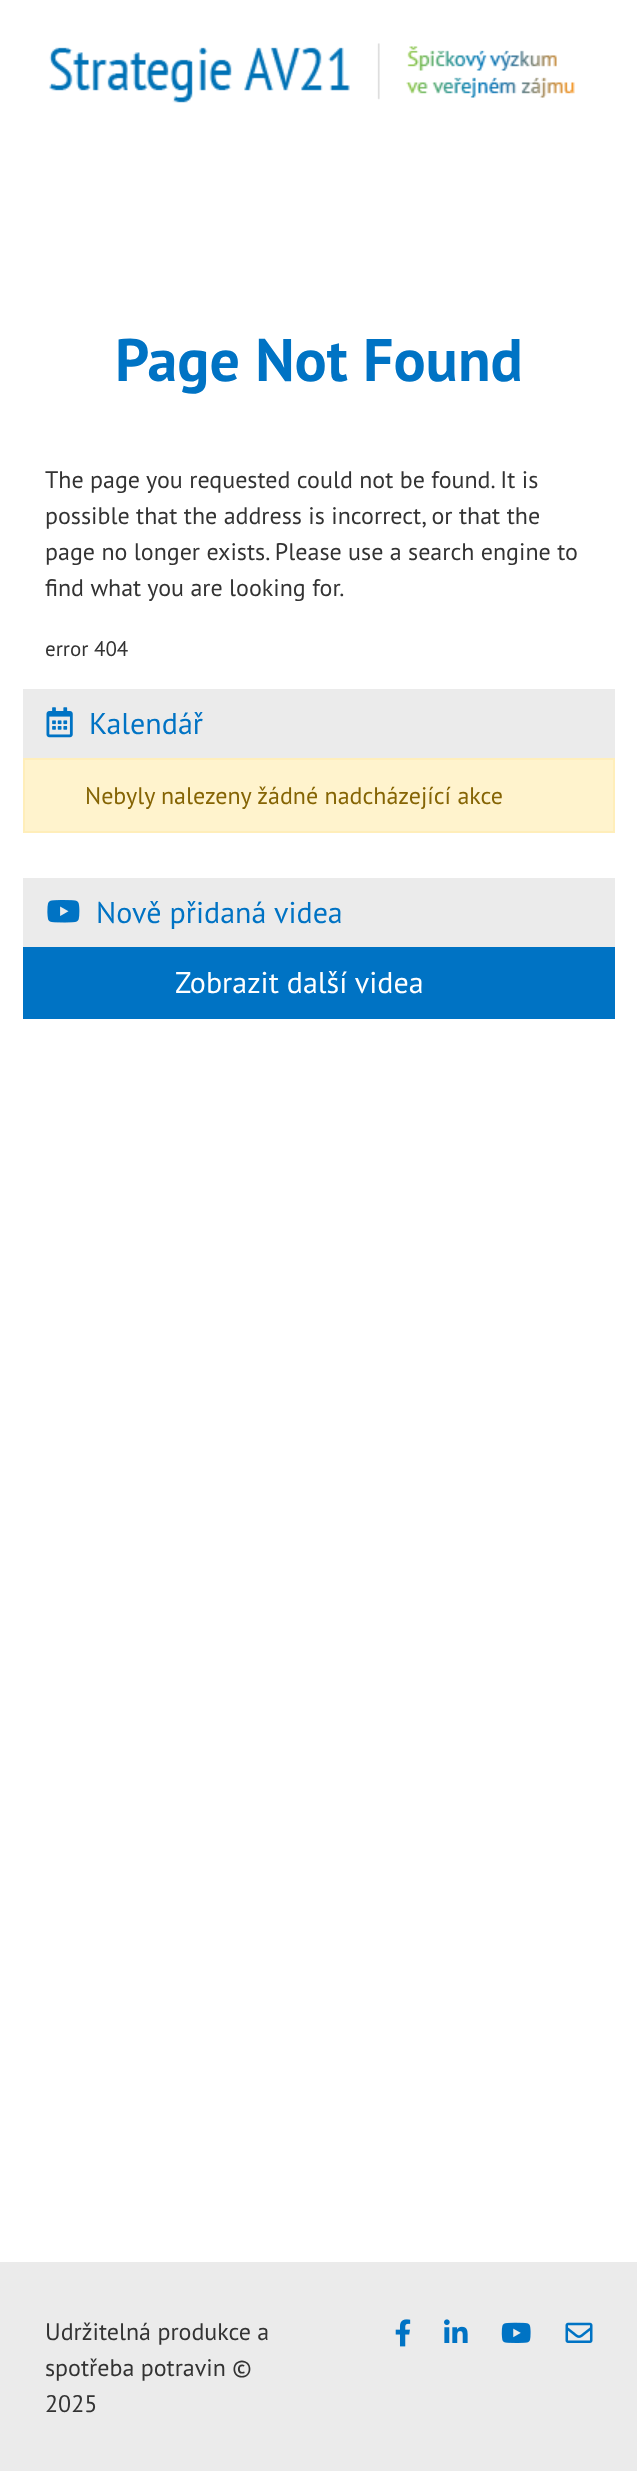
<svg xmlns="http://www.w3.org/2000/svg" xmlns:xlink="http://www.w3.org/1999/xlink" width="637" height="2471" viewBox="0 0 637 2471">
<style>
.cls-1{font:bold 60px PT Sans;fill:#0073c4}
.cls-2{font:24px PT Sans;fill:#333333}
.cls-3{font:21px PT Sans;fill:#333333}
.cls-4{font:30px PT Sans;fill:#0073c4}
.cls-5{font:24px PT Sans;fill:#856404}
.cls-6{font:30px PT Sans;fill:#ffffff}
</style>
<rect width="100%" height="100%" fill="#ffffff"/>
<image xlink:href="image0.png" x="49" y="43" width="526" height="60"/>
<rect fill="#ebebeb" x="23" y="689" width="592" height="69"/>
<image xlink:href="image1.png" x="46" y="707" width="27" height="31"/>
<rect fill="#fff3cd" stroke="#ffeeba" stroke-width="2" x="24" y="759" width="590" height="73"/>
<rect fill="#ebebeb" x="23" y="878" width="592" height="69"/>
<image xlink:href="image2.png" x="47" y="900" width="33" height="23"/>
<rect fill="#0073c4" x="23" y="947" width="592" height="72"/>
<rect fill="#ebebeb" x="0" y="2262" width="637" height="209"/>
<image xlink:href="image3.png" x="395" y="2319" width="16" height="28"/>
<image xlink:href="image4.png" x="444" y="2319" width="24" height="24"/>
<image xlink:href="image5.png" x="501" y="2322" width="30" height="21"/>
<image xlink:href="image6.png" x="565" y="2322" width="28" height="21"/>
<text class="cls-1" x="115" y="381">Page Not Found</text>
<text class="cls-2"><tspan x="45" y="488">The page you requested could not be found. It is</tspan><tspan x="45" y="524">possible that the address is incorrect, or that the</tspan><tspan x="45" y="560">page no longer exists. Please use a search engine to</tspan><tspan x="45" y="596">find what you are looking for.</tspan></text>
<text class="cls-3" x="45" y="656">error 404</text>
<text class="cls-4" x="89" y="734">Kalendář</text>
<text class="cls-5" x="85" y="804">Nebyly nalezeny žádné nadcházející akce</text>
<text class="cls-4" x="96" y="923">Nově přidaná videa</text>
<text class="cls-6" x="175" y="993">Zobrazit další videa</text>
<text class="cls-2"><tspan x="45" y="2340">Udržitelná produkce a</tspan><tspan x="45" y="2376">spotřeba potravin ©</tspan><tspan x="45" y="2412">2025</tspan></text>
</svg>
